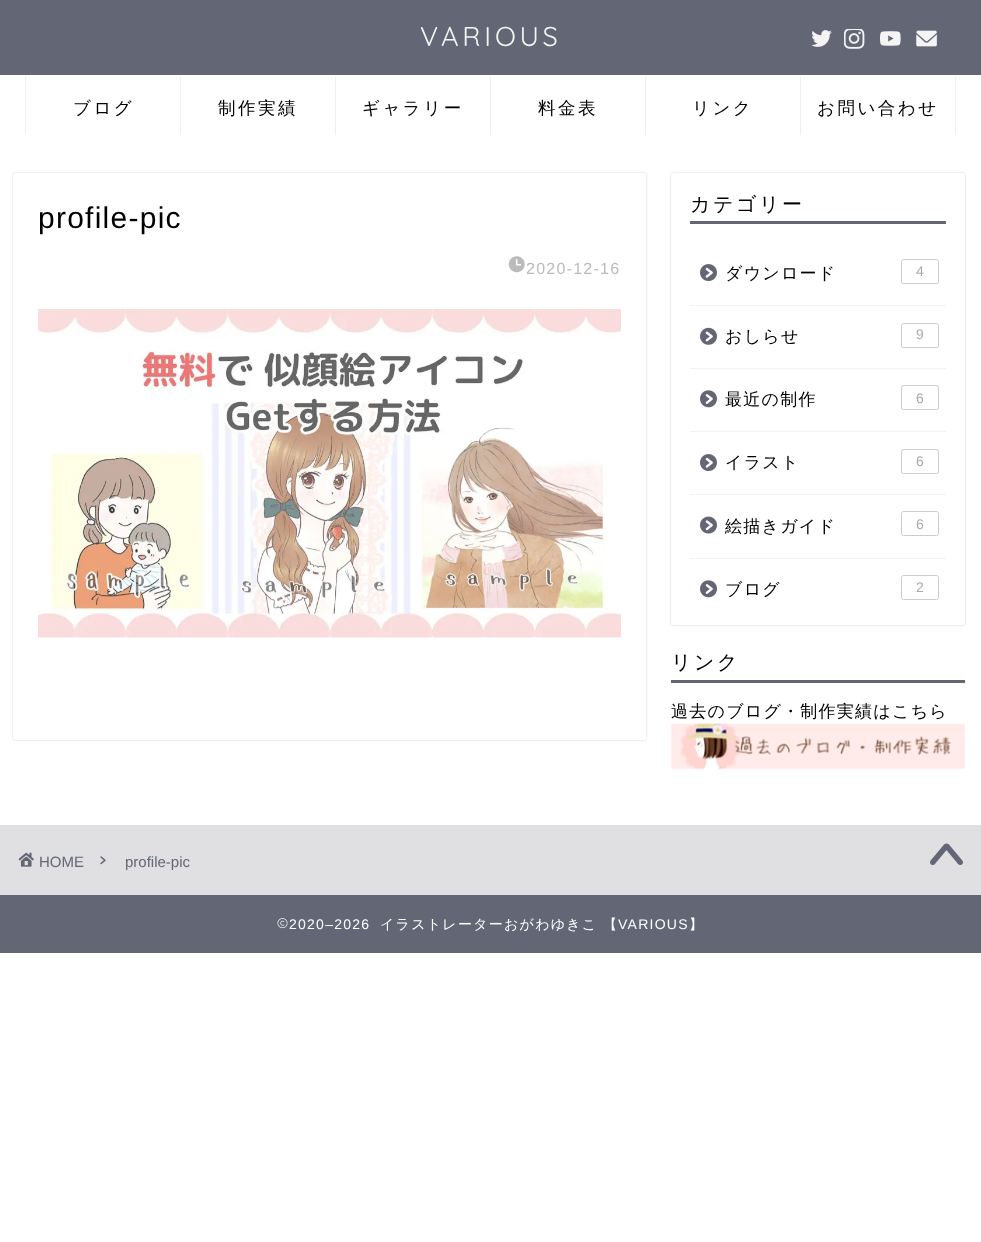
<svg xmlns="http://www.w3.org/2000/svg" xmlns:xlink="http://www.w3.org/1999/xlink" width="981" height="1242" viewBox="0 0 981 1242">
<style>
.cls-1{font:300 27.25px Quicksand;letter-spacing:3.75px;fill:#f4f4f4}
.cls-2{font:500 17.5px WenQuanYi Zen Hei;letter-spacing:2.5px;fill:#000000}
.cls-3{font:30px Liberation Sans;letter-spacing:1.25px;fill:#000000}
.cls-4{font:16px Liberation Sans;letter-spacing:1.25px;fill:#bbbbbb}
.cls-5{font:500 20px WenQuanYi Zen Hei;letter-spacing:2.5px;fill:#000000}
.cls-6{font:500 17px WenQuanYi Zen Hei;letter-spacing:1.25px;fill:#000000}
.cls-7{font:14px Liberation Sans;fill:#aaaaaa}
.cls-8{font:15px Liberation Sans;fill:#636675}
.cls-9{font:14px Liberation Sans;letter-spacing:1.25px;fill:#ffffff}
.cls-10{font:500 14px WenQuanYi Zen Hei;letter-spacing:1.25px;fill:#ffffff}
</style>
<rect width="100%" height="100%" fill="#ffffff"/>
<rect fill="#636675" x="0" y="0" width="981" height="75"/>
<image xlink:href="image0.png" x="811" y="30" width="21" height="17"/>
<image xlink:href="image1.png" x="844" y="29" width="21" height="20"/>
<image xlink:href="image2.png" x="880" y="31" width="21" height="15"/>
<image xlink:href="image3.png" x="916" y="30" width="21" height="17"/>
<path fill="#efefef" d="M25 135V75L26 78V135Z"/>
<path fill="#efefef" d="M180 135V75L181 78V135Z"/>
<path fill="#efefef" d="M335 135V75L336 78V135Z"/>
<path fill="#efefef" d="M490 135V75L491 78V135Z"/>
<path fill="#efefef" d="M645 135V75L646 78V135Z"/>
<path fill="#efefef" d="M956 75V135H955V78Z"/>
<path fill="#efefef" d="M800 135V75L801 78V135Z"/>
<rect fill="#000000" fill-opacity="0.18" filter="blur(1px)" x="13" y="173" width="633" height="567" rx="2.5"/>
<rect fill="#ffffff" x="13" y="173" width="633" height="567" rx="2.5"/>
<image xlink:href="image4.png" x="508" y="256" width="17" height="17"/>
<image xlink:href="image5.png" x="38" y="309" width="583" height="329"/>
<rect fill="#000000" fill-opacity="0.18" filter="blur(1px)" x="671" y="173" width="294" height="452" rx="2.5"/>
<rect fill="#ffffff" x="671" y="173" width="294" height="452" rx="2.5"/>
<rect fill="#636675" x="690" y="221" width="256" height="3"/>
<rect fill="#f2f2f2" x="690" y="305" width="256" height="1"/>
<image xlink:href="image6.png" x="700" y="264" width="17" height="18"/>
<rect fill="none" stroke="#cccccc" x="901.5" y="259.5" width="37" height="24" rx="2"/>
<rect fill="#f2f2f2" x="690" y="368" width="256" height="1"/>
<image xlink:href="image7.png" x="700" y="327" width="17" height="18"/>
<rect fill="none" stroke="#cccccc" x="901.5" y="323.5" width="37" height="24" rx="2"/>
<rect fill="#f2f2f2" x="690" y="431" width="256" height="1"/>
<image xlink:href="image8.png" x="700" y="390" width="17" height="18"/>
<rect fill="none" stroke="#cccccc" x="901.5" y="385.5" width="37" height="24" rx="2"/>
<rect fill="#f2f2f2" x="690" y="494" width="256" height="1"/>
<image xlink:href="image6.png" x="700" y="454" width="17" height="18"/>
<rect fill="none" stroke="#cccccc" x="901.5" y="449.5" width="37" height="24" rx="2"/>
<rect fill="#f2f2f2" x="690" y="558" width="256" height="1"/>
<image xlink:href="image9.png" x="700" y="516" width="17" height="18"/>
<rect fill="none" stroke="#cccccc" x="901.5" y="511.5" width="37" height="24" rx="2"/>
<image xlink:href="image8.png" x="700" y="580" width="17" height="18"/>
<rect fill="none" stroke="#cccccc" x="901.5" y="575.5" width="37" height="24" rx="2"/>
<rect fill="#636675" x="671" y="680" width="294" height="3"/>
<image xlink:href="image10.png" x="671" y="723" width="294" height="47"/>
<rect fill="#e0e0e3" x="0" y="825" width="981" height="70"/>
<image xlink:href="image11.png" x="18" y="852" width="16" height="15"/>
<image xlink:href="image12.png" x="100" y="856" width="6" height="9"/>
<image xlink:href="image13.png" x="930" y="843" width="33" height="22"/>
<rect fill="#636675" x="0" y="895" width="981" height="58"/>
<image xlink:href="image14.png" x="277" y="918" width="11" height="11"/>
<text class="cls-1" x="420" y="46">VARIOUS</text>
<text class="cls-2" x="73" y="114">ブログ</text>
<text class="cls-2" x="218" y="114">制作実績</text>
<text class="cls-2" x="362" y="114">ギャラリー</text>
<text class="cls-2" x="538" y="114">料金表</text>
<text class="cls-2" x="692" y="114">リンク</text>
<text class="cls-2" x="817" y="114">お問い合わせ</text>
<text class="cls-3" x="38" y="228">profile-pic</text>
<text class="cls-4" x="526" y="274">2020-12-16</text>
<text class="cls-5" x="690" y="211">カテゴリー</text>
<text class="cls-6" x="725" y="279">ダウンロード</text>
<text class="cls-7" x="916" y="276">4</text>
<text class="cls-6" x="725" y="342">おしらせ</text>
<text class="cls-7" x="916" y="339">9</text>
<text class="cls-6" x="725" y="405">最近の制作</text>
<text class="cls-7" x="916" y="403">6</text>
<text class="cls-6" x="725" y="468">イラスト</text>
<text class="cls-7" x="916" y="466">6</text>
<text class="cls-6" x="725" y="532">絵描きガイド</text>
<text class="cls-7" x="916" y="529">6</text>
<text class="cls-6" x="725" y="595">ブログ</text>
<text class="cls-7" x="916" y="592">2</text>
<text class="cls-5" x="671" y="669">リンク</text>
<text class="cls-6" x="671" y="717">過去のブログ・制作実績はこちら</text>
<text class="cls-8" x="39" y="867">HOME</text>
<text class="cls-8" x="125" y="867">profile-pic</text>
<text class="cls-9" x="289" y="929">2020–2026</text>
<text class="cls-10" x="380" y="929">イラストレーターおがわゆきこ 【</text>
<text class="cls-9" x="618" y="929">VARIOUS</text>
<text class="cls-10" x="689" y="929">】</text>
</svg>
